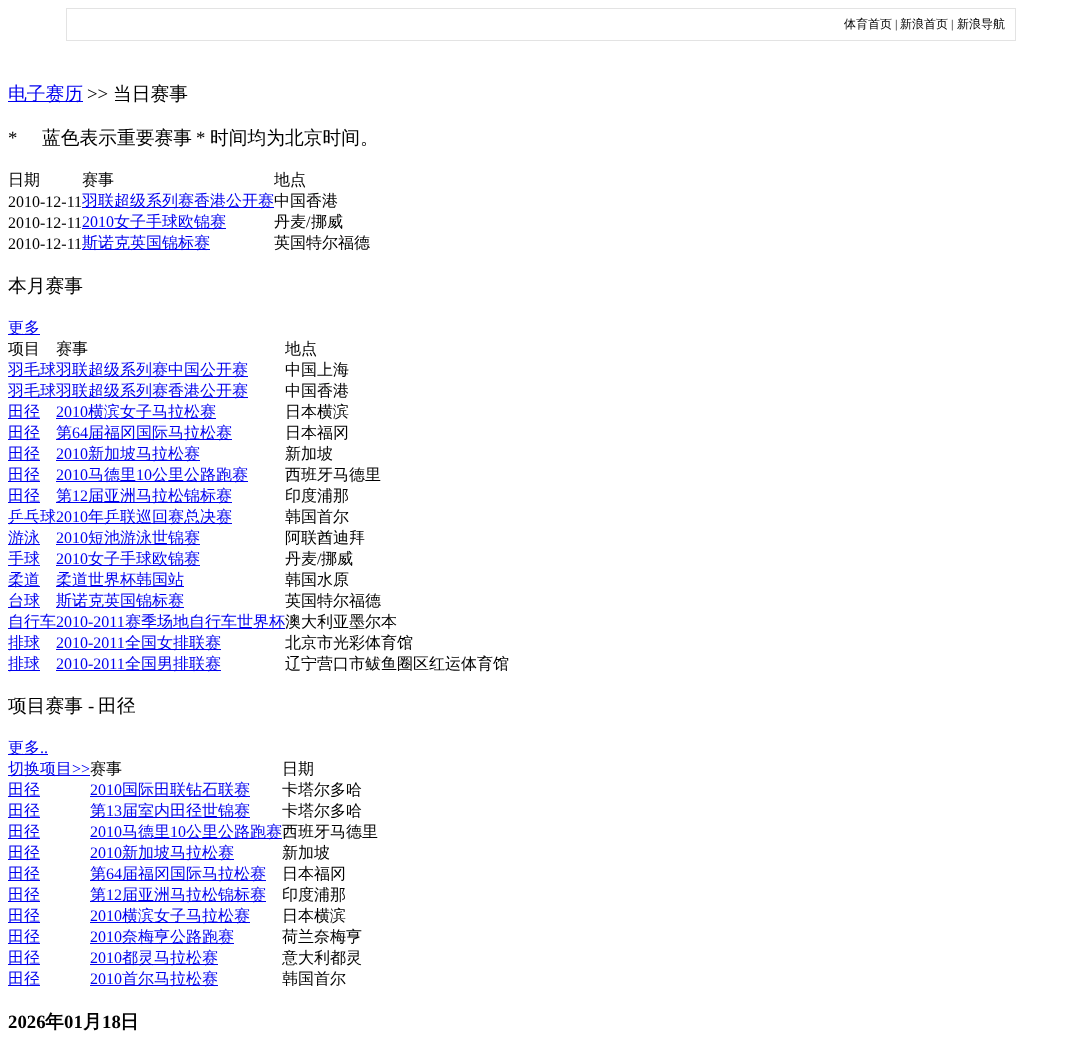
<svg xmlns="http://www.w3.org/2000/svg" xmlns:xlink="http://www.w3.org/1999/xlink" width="1081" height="1046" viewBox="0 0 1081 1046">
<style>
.cls-1{font:500 12px WenQuanYi Zen Hei;fill:#000000}
.cls-2{font:12px Liberation Serif;fill:#000000}
.cls-3{font:500 18.75px WenQuanYi Zen Hei;fill:#0000ee}
.cls-4{font:18.75px Liberation Serif;fill:#000000}
.cls-5{font:500 18.75px WenQuanYi Zen Hei;fill:#000000}
.cls-6{font:500 16px WenQuanYi Zen Hei;fill:#000000}
.cls-7{font:16px Liberation Serif;fill:#000000}
.cls-8{font:500 16px WenQuanYi Zen Hei;fill:#0000ee}
.cls-9{font:16px Liberation Serif;fill:#0000ee}
.cls-10{font:bold 18.75px Liberation Serif;fill:#000000}
.cls-11{font:bold 18.75px WenQuanYi Zen Hei;fill:#000000}
</style>
<rect width="100%" height="100%" fill="#ffffff"/>
<rect fill="none" stroke="#e3e3e3" x="66.5" y="8.5" width="949" height="32"/>
<rect fill="#0000ee" x="8" y="101" width="75" height="1"/>
<rect fill="#0000ee" x="82" y="207" width="192" height="1"/>
<rect fill="#0000ee" x="82" y="228" width="144" height="1"/>
<rect fill="#0000ee" x="82" y="249" width="128" height="1"/>
<rect fill="#0000ee" x="8" y="334" width="32" height="1"/>
<rect fill="#0000ee" x="8" y="376" width="240" height="1"/>
<rect fill="#0000ee" x="8" y="397" width="240" height="1"/>
<rect fill="#0000ee" x="8" y="418" width="32" height="1"/>
<rect fill="#0000ee" x="56" y="418" width="160" height="1"/>
<rect fill="#0000ee" x="8" y="439" width="32" height="1"/>
<rect fill="#0000ee" x="56" y="439" width="176" height="1"/>
<rect fill="#0000ee" x="8" y="460" width="32" height="1"/>
<rect fill="#0000ee" x="56" y="460" width="144" height="1"/>
<rect fill="#0000ee" x="8" y="481" width="32" height="1"/>
<rect fill="#0000ee" x="56" y="481" width="192" height="1"/>
<rect fill="#0000ee" x="8" y="502" width="32" height="1"/>
<rect fill="#0000ee" x="56" y="502" width="176" height="1"/>
<rect fill="#0000ee" x="8" y="523" width="224" height="1"/>
<rect fill="#0000ee" x="8" y="544" width="32" height="1"/>
<rect fill="#0000ee" x="56" y="544" width="144" height="1"/>
<rect fill="#0000ee" x="8" y="565" width="32" height="1"/>
<rect fill="#0000ee" x="56" y="565" width="144" height="1"/>
<rect fill="#0000ee" x="8" y="586" width="32" height="1"/>
<rect fill="#0000ee" x="56" y="586" width="128" height="1"/>
<rect fill="#0000ee" x="8" y="607" width="32" height="1"/>
<rect fill="#0000ee" x="56" y="607" width="128" height="1"/>
<rect fill="#0000ee" x="8" y="628" width="277" height="1"/>
<rect fill="#0000ee" x="8" y="649" width="32" height="1"/>
<rect fill="#0000ee" x="56" y="649" width="165" height="1"/>
<rect fill="#0000ee" x="8" y="670" width="32" height="1"/>
<rect fill="#0000ee" x="56" y="670" width="165" height="1"/>
<rect fill="#0000ee" x="8" y="754" width="40" height="1"/>
<rect fill="#0000ee" x="8" y="775" width="82" height="1"/>
<rect fill="#0000ee" x="8" y="796" width="32" height="1"/>
<rect fill="#0000ee" x="90" y="796" width="160" height="1"/>
<rect fill="#0000ee" x="8" y="817" width="32" height="1"/>
<rect fill="#0000ee" x="90" y="817" width="160" height="1"/>
<rect fill="#0000ee" x="8" y="838" width="32" height="1"/>
<rect fill="#0000ee" x="90" y="838" width="192" height="1"/>
<rect fill="#0000ee" x="8" y="859" width="32" height="1"/>
<rect fill="#0000ee" x="90" y="859" width="144" height="1"/>
<rect fill="#0000ee" x="8" y="880" width="32" height="1"/>
<rect fill="#0000ee" x="90" y="880" width="176" height="1"/>
<rect fill="#0000ee" x="8" y="901" width="32" height="1"/>
<rect fill="#0000ee" x="90" y="901" width="176" height="1"/>
<rect fill="#0000ee" x="8" y="922" width="32" height="1"/>
<rect fill="#0000ee" x="90" y="922" width="160" height="1"/>
<rect fill="#0000ee" x="8" y="943" width="32" height="1"/>
<rect fill="#0000ee" x="90" y="943" width="144" height="1"/>
<rect fill="#0000ee" x="8" y="964" width="32" height="1"/>
<rect fill="#0000ee" x="90" y="964" width="128" height="1"/>
<rect fill="#0000ee" x="8" y="985" width="32" height="1"/>
<rect fill="#0000ee" x="90" y="985" width="128" height="1"/>
<text class="cls-1" x="844" y="28">体育首页</text>
<text class="cls-2" x="895" y="28">|</text>
<text class="cls-1" x="900" y="28">新浪首页</text>
<text class="cls-2" x="951" y="28">|</text>
<text class="cls-1" x="957" y="28">新浪导航</text>
<text class="cls-3" x="8" y="100">电子赛历</text>
<text class="cls-4" x="87" y="100">&gt;&gt;</text>
<text class="cls-5" x="113" y="100">当日赛事</text>
<text class="cls-4" x="8" y="144">*</text>
<text class="cls-5" x="42" y="144">蓝色表示重要赛事</text>
<text class="cls-4" x="196" y="144">*</text>
<text class="cls-5" x="210" y="144">时间均为北京时间。</text>
<text class="cls-6" x="8" y="185">日期</text>
<text class="cls-6" x="82" y="185">赛事</text>
<text class="cls-6" x="274" y="185">地点</text>
<text class="cls-7" x="8" y="207">2010-12-11</text>
<text class="cls-8" x="82" y="206">羽联超级系列赛香港公开赛</text>
<text class="cls-6" x="274" y="206">中国香港</text>
<text class="cls-7" x="8" y="228">2010-12-11</text>
<text class="cls-9" x="82" y="227">2010</text>
<text class="cls-8" x="114" y="227">女子手球欧锦赛</text>
<text class="cls-6" x="274" y="227">丹麦</text>
<text class="cls-7" x="306" y="227">/</text>
<text class="cls-6" x="311" y="227">挪威</text>
<text class="cls-7" x="8" y="249">2010-12-11</text>
<text class="cls-8" x="82" y="248">斯诺克英国锦标赛</text>
<text class="cls-6" x="274" y="248">英国特尔福德</text>
<text class="cls-5" x="8" y="292">本月赛事</text>
<text class="cls-8" x="8" y="333">更多</text>
<text class="cls-6" x="8" y="354">项目</text>
<text class="cls-6" x="56" y="354">赛事</text>
<text class="cls-6" x="285" y="354">地点</text>
<text class="cls-8" x="8" y="375">羽毛球羽联超级系列赛中国公开赛</text>
<text class="cls-6" x="285" y="375">中国上海</text>
<text class="cls-8" x="8" y="396">羽毛球羽联超级系列赛香港公开赛</text>
<text class="cls-6" x="285" y="396">中国香港</text>
<text class="cls-8" x="8" y="417">田径</text>
<text class="cls-9" x="56" y="417">2010</text>
<text class="cls-8" x="88" y="417">横滨女子马拉松赛</text>
<text class="cls-6" x="285" y="417">日本横滨</text>
<text class="cls-8" x="8" y="438">田径</text>
<text class="cls-8" x="56" y="438">第</text>
<text class="cls-9" x="72" y="438">64</text>
<text class="cls-8" x="88" y="438">届福冈国际马拉松赛</text>
<text class="cls-6" x="285" y="438">日本福冈</text>
<text class="cls-8" x="8" y="459">田径</text>
<text class="cls-9" x="56" y="459">2010</text>
<text class="cls-8" x="88" y="459">新加坡马拉松赛</text>
<text class="cls-6" x="285" y="459">新加坡</text>
<text class="cls-8" x="8" y="480">田径</text>
<text class="cls-9" x="56" y="480">2010</text>
<text class="cls-8" x="88" y="480">马德里</text>
<text class="cls-9" x="136" y="480">10</text>
<text class="cls-8" x="152" y="480">公里公路跑赛</text>
<text class="cls-6" x="285" y="480">西班牙马德里</text>
<text class="cls-8" x="8" y="501">田径</text>
<text class="cls-8" x="56" y="501">第</text>
<text class="cls-9" x="72" y="501">12</text>
<text class="cls-8" x="88" y="501">届亚洲马拉松锦标赛</text>
<text class="cls-6" x="285" y="501">印度浦那</text>
<text class="cls-8" x="8" y="522">乒乓球</text>
<text class="cls-9" x="56" y="522">2010</text>
<text class="cls-8" x="88" y="522">年乒联巡回赛总决赛</text>
<text class="cls-6" x="285" y="522">韩国首尔</text>
<text class="cls-8" x="8" y="543">游泳</text>
<text class="cls-9" x="56" y="543">2010</text>
<text class="cls-8" x="88" y="543">短池游泳世锦赛</text>
<text class="cls-6" x="285" y="543">阿联酋迪拜</text>
<text class="cls-8" x="8" y="564">手球</text>
<text class="cls-9" x="56" y="564">2010</text>
<text class="cls-8" x="88" y="564">女子手球欧锦赛</text>
<text class="cls-6" x="285" y="564">丹麦</text>
<text class="cls-7" x="317" y="564">/</text>
<text class="cls-6" x="321" y="564">挪威</text>
<text class="cls-8" x="8" y="585">柔道</text>
<text class="cls-8" x="56" y="585">柔道世界杯韩国站</text>
<text class="cls-6" x="285" y="585">韩国水原</text>
<text class="cls-8" x="8" y="606">台球</text>
<text class="cls-8" x="56" y="606">斯诺克英国锦标赛</text>
<text class="cls-6" x="285" y="606">英国特尔福德</text>
<text class="cls-8" x="8" y="627">自行车</text>
<text class="cls-9" x="56" y="627">2010-2011</text>
<text class="cls-8" x="125" y="627">赛季场地自行车世界杯</text>
<text class="cls-6" x="285" y="627">澳大利亚墨尔本</text>
<text class="cls-8" x="8" y="648">排球</text>
<text class="cls-9" x="56" y="648">2010-2011</text>
<text class="cls-8" x="125" y="648">全国女排联赛</text>
<text class="cls-6" x="285" y="648">北京市光彩体育馆</text>
<text class="cls-8" x="8" y="669">排球</text>
<text class="cls-9" x="56" y="669">2010-2011</text>
<text class="cls-8" x="125" y="669">全国男排联赛</text>
<text class="cls-6" x="285" y="669">辽宁营口市鲅鱼圈区红运体育馆</text>
<text class="cls-5" x="8" y="712">项目赛事</text>
<text class="cls-4" x="88" y="712">-</text>
<text class="cls-5" x="98" y="712">田径</text>
<text class="cls-8" x="8" y="753">更多</text>
<text class="cls-9" x="40" y="753">..</text>
<text class="cls-8" x="8" y="774">切换项目</text>
<text class="cls-9" x="72" y="774">&gt;&gt;</text>
<text class="cls-6" x="90" y="774">赛事</text>
<text class="cls-6" x="282" y="774">日期</text>
<text class="cls-8" x="8" y="795">田径</text>
<text class="cls-9" x="90" y="795">2010</text>
<text class="cls-8" x="122" y="795">国际田联钻石联赛</text>
<text class="cls-6" x="282" y="795">卡塔尔多哈</text>
<text class="cls-8" x="8" y="816">田径</text>
<text class="cls-8" x="90" y="816">第</text>
<text class="cls-9" x="106" y="816">13</text>
<text class="cls-8" x="122" y="816">届室内田径世锦赛</text>
<text class="cls-6" x="282" y="816">卡塔尔多哈</text>
<text class="cls-8" x="8" y="837">田径</text>
<text class="cls-9" x="90" y="837">2010</text>
<text class="cls-8" x="122" y="837">马德里</text>
<text class="cls-9" x="170" y="837">10</text>
<text class="cls-8" x="186" y="837">公里公路跑赛</text>
<text class="cls-6" x="282" y="837">西班牙马德里</text>
<text class="cls-8" x="8" y="858">田径</text>
<text class="cls-9" x="90" y="858">2010</text>
<text class="cls-8" x="122" y="858">新加坡马拉松赛</text>
<text class="cls-6" x="282" y="858">新加坡</text>
<text class="cls-8" x="8" y="879">田径</text>
<text class="cls-8" x="90" y="879">第</text>
<text class="cls-9" x="106" y="879">64</text>
<text class="cls-8" x="122" y="879">届福冈国际马拉松赛</text>
<text class="cls-6" x="282" y="879">日本福冈</text>
<text class="cls-8" x="8" y="900">田径</text>
<text class="cls-8" x="90" y="900">第</text>
<text class="cls-9" x="106" y="900">12</text>
<text class="cls-8" x="122" y="900">届亚洲马拉松锦标赛</text>
<text class="cls-6" x="282" y="900">印度浦那</text>
<text class="cls-8" x="8" y="921">田径</text>
<text class="cls-9" x="90" y="921">2010</text>
<text class="cls-8" x="122" y="921">横滨女子马拉松赛</text>
<text class="cls-6" x="282" y="921">日本横滨</text>
<text class="cls-8" x="8" y="942">田径</text>
<text class="cls-9" x="90" y="942">2010</text>
<text class="cls-8" x="122" y="942">奈梅亨公路跑赛</text>
<text class="cls-6" x="282" y="942">荷兰奈梅亨</text>
<text class="cls-8" x="8" y="963">田径</text>
<text class="cls-9" x="90" y="963">2010</text>
<text class="cls-8" x="122" y="963">都灵马拉松赛</text>
<text class="cls-6" x="282" y="963">意大利都灵</text>
<text class="cls-8" x="8" y="984">田径</text>
<text class="cls-9" x="90" y="984">2010</text>
<text class="cls-8" x="122" y="984">首尔马拉松赛</text>
<text class="cls-6" x="282" y="984">韩国首尔</text>
<text class="cls-10" x="8" y="1028">2026</text>
<text class="cls-11" x="45" y="1028">年</text>
<text class="cls-10" x="64" y="1028">01</text>
<text class="cls-11" x="83" y="1028">月</text>
<text class="cls-10" x="102" y="1028">18</text>
<text class="cls-11" x="120" y="1028">日</text>
</svg>
